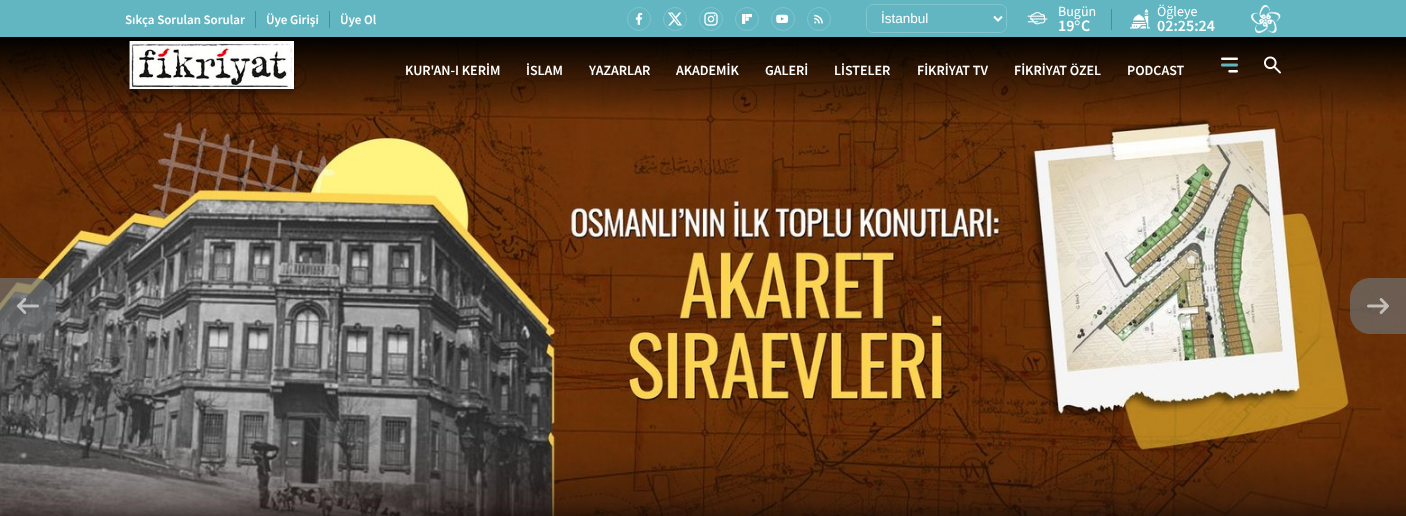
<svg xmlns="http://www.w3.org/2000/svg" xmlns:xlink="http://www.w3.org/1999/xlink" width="1406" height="516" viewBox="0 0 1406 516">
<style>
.cls-1{font:600 13px Source Sans Pro;fill:#ffffff}
.cls-2{font:13.5px Liberation Sans;fill:#ffffff}
.cls-3{font:14px Source Sans Pro;fill:#ffffff}
.cls-4{font:600 16px Source Sans Pro;fill:#ffffff}
.cls-5{font:16px Liberation Serif;fill:#ffffff}
.cls-6{font:600 14px Source Sans Pro;fill:#ffffff}
</style>
<rect width="100%" height="100%" fill="#ffffff"/>
<rect fill="#62b6c1" x="0" y="0" width="1406" height="37"/>
<rect fill="#488e97" x="255" y="11" width="1" height="17"/>
<rect fill="#488e97" x="329" y="11" width="1" height="17"/>
<circle fill="none" stroke="#81c5cd" cx="639" cy="19" r="11.5"/>
<image xlink:href="image0.png" x="635" y="12" width="8" height="13"/>
<circle fill="none" stroke="#81c5cd" cx="675" cy="19" r="11.5"/>
<image xlink:href="image1.png" x="668" y="12" width="15" height="14"/>
<circle fill="none" stroke="#81c5cd" cx="711" cy="19" r="11.5"/>
<image xlink:href="image2.png" x="704" y="12" width="14" height="14"/>
<circle fill="none" stroke="#81c5cd" cx="747" cy="19" r="11.5"/>
<image xlink:href="image3.png" x="742" y="14" width="10" height="10"/>
<circle fill="none" stroke="#81c5cd" cx="783" cy="19" r="11.5"/>
<image xlink:href="image4.png" x="776" y="14" width="13" height="9"/>
<circle fill="none" stroke="#81c5cd" cx="819" cy="19" r="11.5"/>
<image xlink:href="image5.png" x="814" y="14" width="9" height="10"/>
<rect fill="none" stroke="#81c5cd" x="866.5" y="4.5" width="140" height="28" rx="6.5"/>
<path fill="none" stroke="#ffffff" stroke-width="2" d="M994 16.5L998 20.5L1002 16.5"/>
<image xlink:href="image6.png" x="1027" y="12" width="21" height="13"/>
<rect fill="#488e97" x="1111" y="9" width="1" height="21"/>
<image xlink:href="image7.png" x="1130" y="9" width="20" height="20"/>
<image xlink:href="image8.png" x="1251" y="5" width="30" height="28"/>
<image xlink:href="image12.png" x="0" y="37" width="1406" height="479"/>
<image xlink:href="image9.png" x="127" y="41" width="169" height="54"/>
<image xlink:href="image10.png" x="1221" y="57" width="17" height="16"/>
<image xlink:href="image11.png" x="1264" y="56" width="17" height="18"/>
<path fill="#6d7172" fill-opacity="0.7" d="M0 278H36C47 278 56 287 56 298V314C56 325 47 334 36 334H0Z"/>
<image xlink:href="image13.png" x="17" y="298" width="22" height="16"/>
<path fill="#6d7172" fill-opacity="0.7" d="M1370 278H1406V334H1370C1359 334 1350 325 1350 314V298C1350 287 1359 278 1370 278Z"/>
<image xlink:href="image14.png" x="1367" y="298" width="22" height="16"/>
<text class="cls-1" x="125" y="24">Sıkça Sorulan Sorular</text>
<text class="cls-1" x="266" y="24">Üye Girişi</text>
<text class="cls-1" x="340" y="24">Üye Ol</text>
<text class="cls-2" x="881" y="23">İstanbul</text>
<text class="cls-3" x="1058" y="16">Bugün</text>
<text class="cls-4" x="1058" y="31">19</text>
<text class="cls-5" x="1074" y="31">°</text>
<text class="cls-4" x="1081" y="31">C</text>
<text class="cls-3" x="1157" y="16">Öğleye</text>
<text class="cls-4" x="1157" y="31">02:25:24</text>
<text class="cls-6" x="405" y="75">KUR'AN-I KERİM</text>
<text class="cls-6" x="526" y="75">İSLAM</text>
<text class="cls-6" x="589" y="75">YAZARLAR</text>
<text class="cls-6" x="676" y="75">AKADEMİK</text>
<text class="cls-6" x="765" y="75">GALERİ</text>
<text class="cls-6" x="834" y="75">LİSTELER</text>
<text class="cls-6" x="917" y="75">FİKRİYAT TV</text>
<text class="cls-6" x="1014" y="75">FİKRİYAT ÖZEL</text>
<text class="cls-6" x="1127" y="75">PODCAST</text>
</svg>
